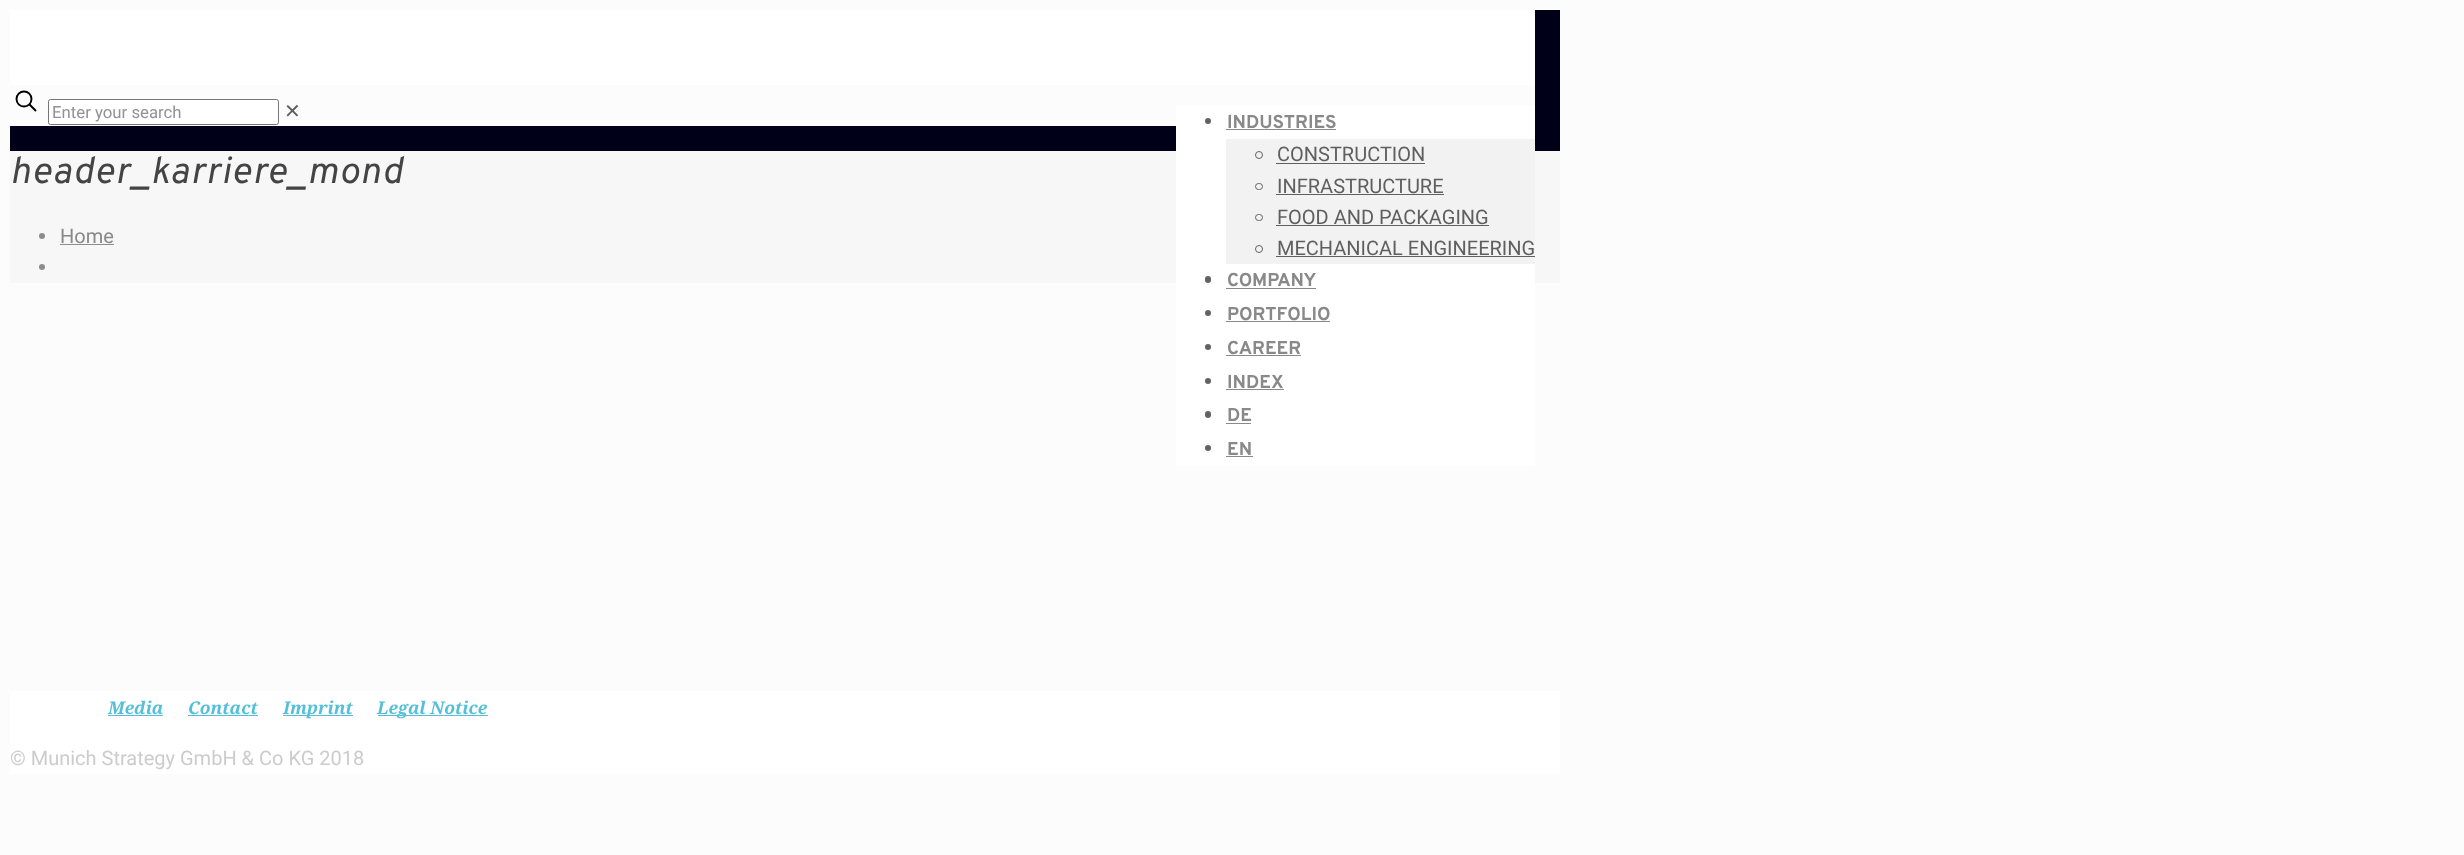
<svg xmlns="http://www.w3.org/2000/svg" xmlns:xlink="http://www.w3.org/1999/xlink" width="2464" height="855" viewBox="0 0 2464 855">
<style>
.cls-1{font:16.75px Roboto;fill:#929292}
.cls-2{font:20px DejaVu Sans;fill:#5f5f5f}
.cls-3{font:bold 18.75px Overpass;fill:#898989}
.cls-4{font:20px Roboto;fill:#5f5f5f}
.cls-5{font:italic 37.5px Overpass;letter-spacing:1.25px;fill:#444444}
.cls-6{font:20px Roboto;fill:#898989}
.cls-7{font:italic bold 17.5px Noto Serif;fill:#55bfd9}
.cls-8{font:20px Roboto;fill:#cccccc}
</style>
<rect width="100%" height="100%" fill="#fcfcfc"/>
<rect fill="#000119" x="10" y="10" width="1550" height="141"/>
<rect fill="#fcfcfc" x="10" y="85" width="1525" height="41"/>
<circle fill="none" stroke="#000000" stroke-width="1.9" cx="24" cy="99" r="7.5"/>
<path fill="none" stroke="#000000" stroke-width="1.9" d="M29.5 104.5L36 111"/>
<rect fill="#ffffff" stroke="#767676" x="48.5" y="99.5" width="230" height="25" rx="2"/>
<rect fill="#ffffff" x="10" y="10" width="1525" height="75"/>
<rect fill="#f7f7f7" x="10" y="151" width="1550" height="132"/>
<rect fill="#ffffff" x="1176" y="105" width="359" height="361"/>
<circle fill="#626262" cx="1208" cy="121" r="3"/>
<rect fill="#898989" x="1226" y="129" width="110" height="1"/>
<rect fill="#f2f2f2" x="1226" y="139" width="309" height="125"/>
<circle fill="none" stroke="#626262" cx="1259" cy="155" r="3.5"/>
<rect fill="#5f5f5f" x="1276" y="163" width="149" height="1"/>
<rect fill="none" stroke="#626262" x="1255.5" y="183.5" width="7" height="6" rx="3"/>
<rect fill="#5f5f5f" x="1276" y="194" width="168" height="1"/>
<rect fill="none" stroke="#626262" x="1255.5" y="214.5" width="7" height="6" rx="3"/>
<rect fill="#5f5f5f" x="1276" y="225" width="213" height="1"/>
<circle fill="none" stroke="#626262" cx="1259" cy="249" r="3.5"/>
<rect fill="#5f5f5f" x="1276" y="256" width="259" height="1"/>
<rect fill="#626262" x="1205" y="276" width="6" height="7" rx="3"/>
<rect fill="#898989" x="1226" y="288" width="90" height="1"/>
<circle fill="#626262" cx="1208" cy="313" r="3"/>
<rect fill="#898989" x="1226" y="321" width="104" height="1"/>
<circle fill="#626262" cx="1208" cy="347" r="3"/>
<rect fill="#898989" x="1226" y="355" width="75" height="1"/>
<circle fill="#626262" cx="1208" cy="381" r="3"/>
<rect fill="#898989" x="1226" y="389" width="58" height="1"/>
<rect fill="#626262" x="1205" y="411" width="6" height="7" rx="3"/>
<rect fill="#898989" x="1226" y="423" width="25" height="1"/>
<circle fill="#626262" cx="1208" cy="448" r="3"/>
<rect fill="#898989" x="1226" y="456" width="27" height="1"/>
<circle fill="#8c8c8c" cx="42" cy="236" r="3"/>
<rect fill="#8c8c8c" x="60" y="244" width="54" height="1"/>
<circle fill="#8c8c8c" cx="42" cy="267" r="3"/>
<rect fill="#ffffff" x="10" y="691" width="1550" height="83"/>
<rect fill="#55bfd9" x="108" y="715" width="55" height="1"/>
<rect fill="#55bfd9" x="188" y="715" width="70" height="1"/>
<rect fill="#55bfd9" x="283" y="715" width="70" height="1"/>
<rect fill="#55bfd9" x="378" y="715" width="110" height="1"/>
<text class="cls-1" x="52" y="118">Enter your search</text>
<text class="cls-2" x="284" y="118">✕</text>
<text class="cls-3" x="1227" y="128">INDUSTRIES</text>
<text class="cls-4"><tspan x="1277" y="161">CONSTRUCTION</tspan><tspan x="1277" y="193">INFRASTRUCTURE</tspan><tspan x="1277" y="224">FOOD AND PACKAGING</tspan><tspan x="1277" y="255">MECHANICAL ENGINEERING</tspan></text>
<text class="cls-3"><tspan x="1227" y="286">COMPANY</tspan><tspan x="1227" y="320">PORTFOLIO</tspan><tspan x="1227" y="354">CAREER</tspan><tspan x="1227" y="388">INDEX</tspan><tspan x="1227" y="421">DE</tspan><tspan x="1227" y="455">EN</tspan></text>
<text class="cls-5" x="10" y="183">header_karriere_mond</text>
<text class="cls-6" x="60" y="243">Home</text>
<text class="cls-7" x="108" y="714">Media</text>
<text class="cls-7" x="188" y="714">Contact</text>
<text class="cls-7" x="283" y="714">Imprint</text>
<text class="cls-7" x="377" y="714">Legal Notice</text>
<text class="cls-8" x="10" y="765">© Munich Strategy GmbH &amp; Co KG 2018</text>
</svg>
